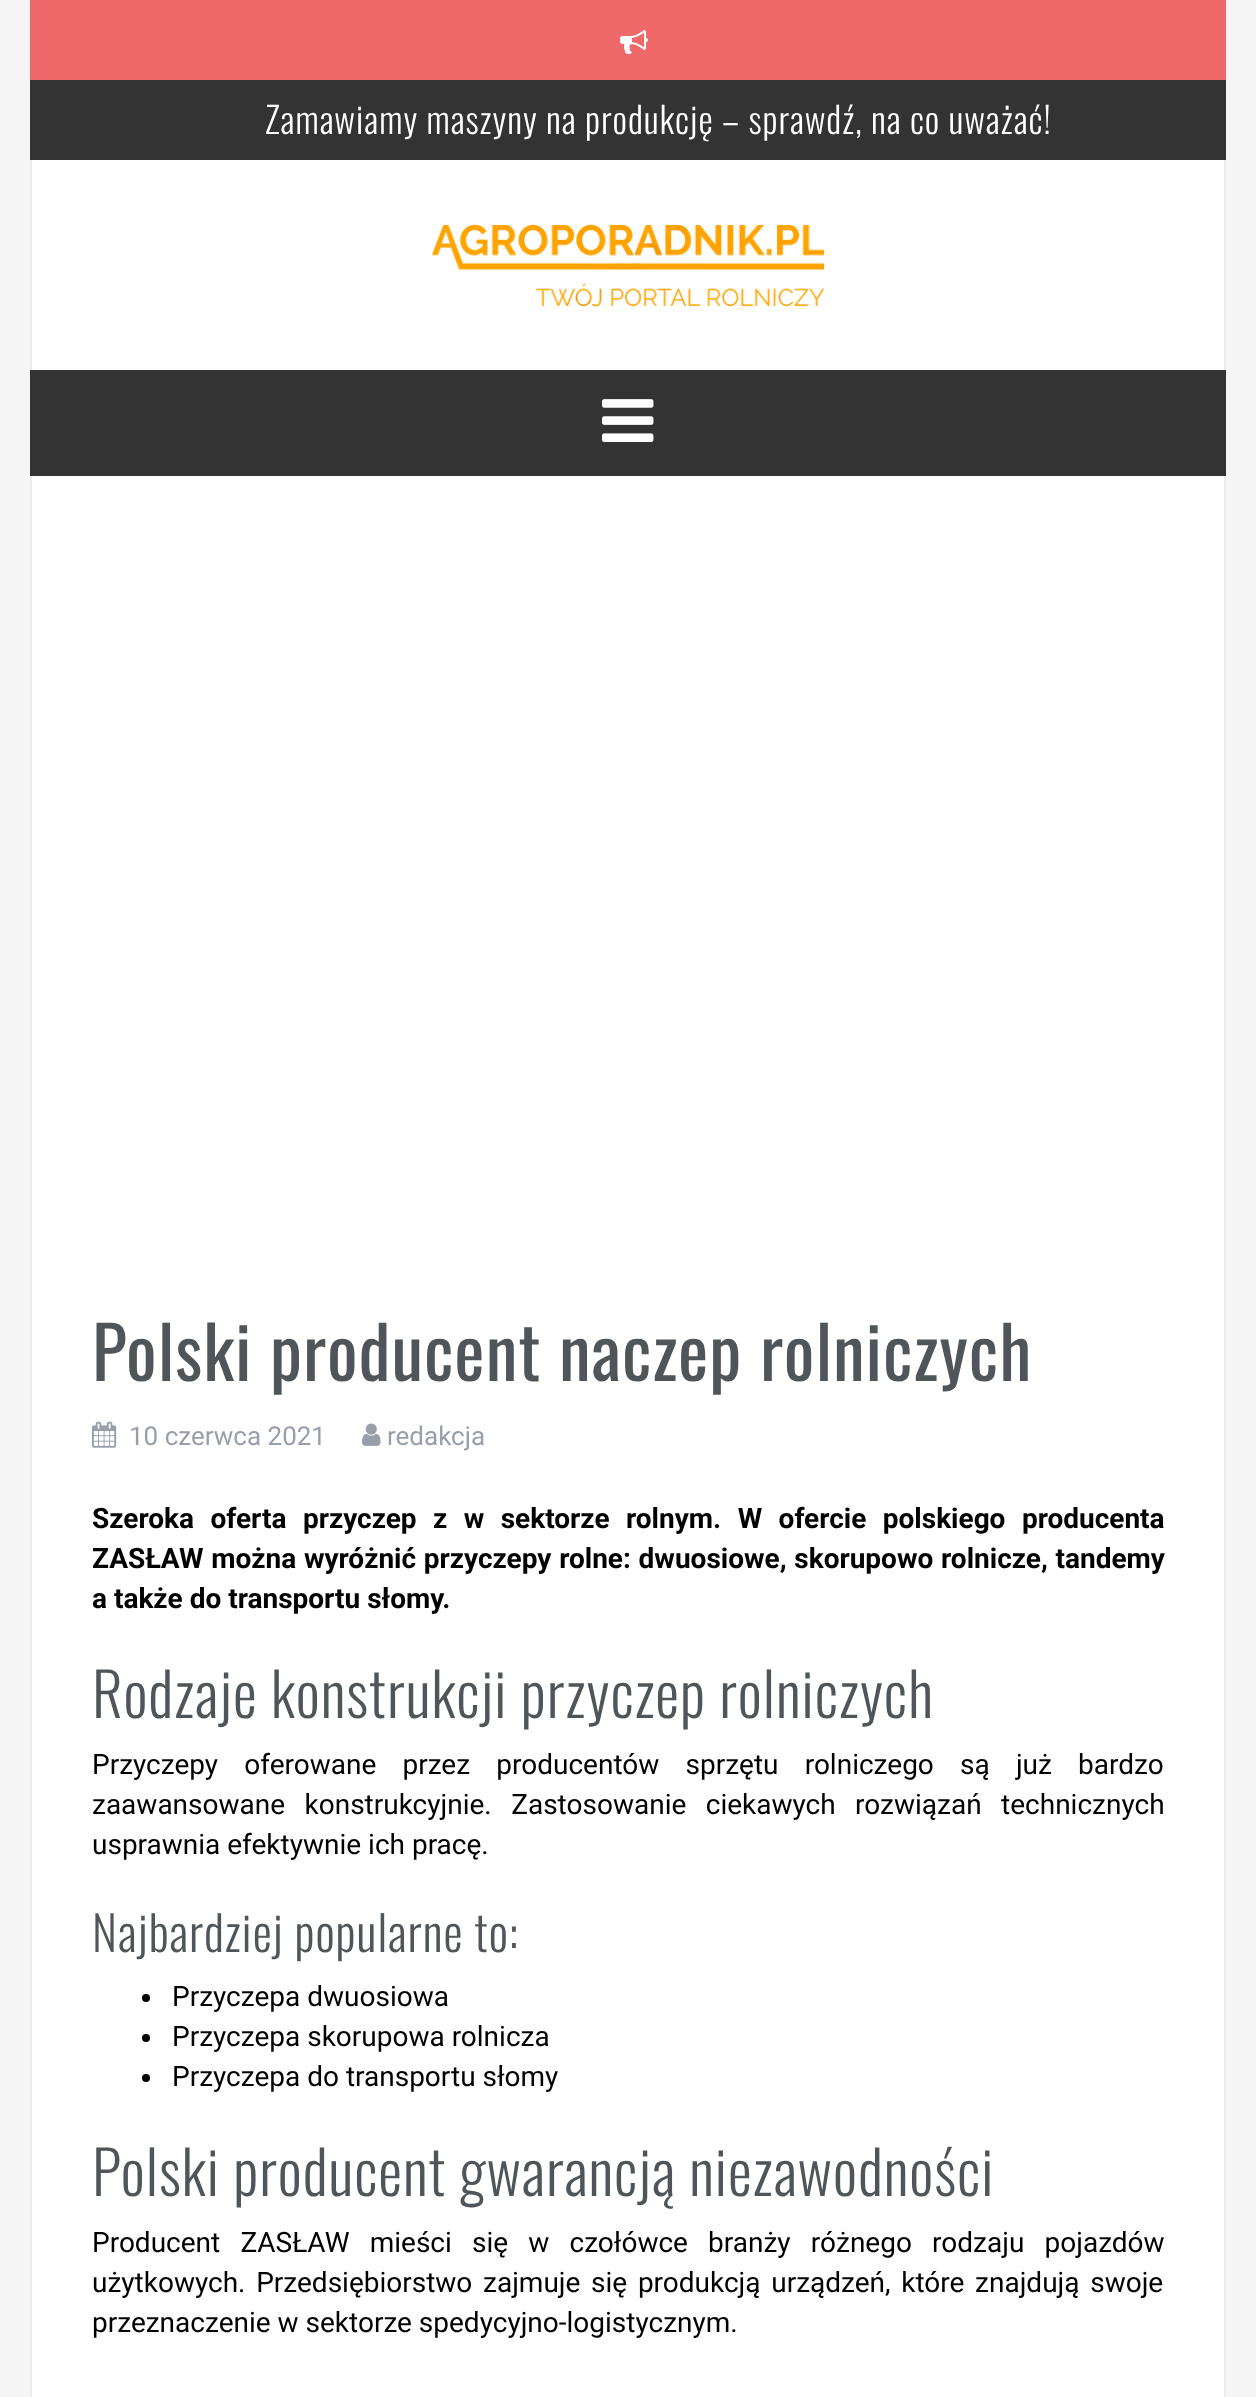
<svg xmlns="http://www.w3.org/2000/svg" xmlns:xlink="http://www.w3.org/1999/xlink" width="1256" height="2397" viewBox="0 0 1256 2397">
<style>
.cls-1{font:300 36px Oswald;letter-spacing:1px;fill:#ffffff}
.cls-2{font:72px Oswald;letter-spacing:1px;fill:#505559}
.cls-3{font:26px Roboto;fill:#989fa8}
.cls-4{font:bold 28px Roboto;fill:#000000}
.cls-5{font:300 60px Oswald;letter-spacing:1px;fill:#505559}
.cls-6{font:28px Roboto;fill:#000000}
.cls-7{font:300 48px Oswald;letter-spacing:1px;fill:#505559}
</style>
<rect width="100%" height="100%" fill="#f5f5f5"/>
<rect fill="#f0696a" x="30" y="0" width="1196" height="80"/>
<image xlink:href="image0.png" x="620" y="30" width="28" height="24"/>
<rect fill="#333333" x="30" y="80" width="1196" height="80"/>
<rect fill="#ffffff" x="32" y="160" width="1192" height="210"/>
<rect fill="#ebebeb" x="1224" y="160" width="2" height="210"/>
<rect fill="#ebebeb" x="30" y="160" width="2" height="210"/>
<image xlink:href="image1.png" x="431" y="224" width="394" height="83"/>
<rect fill="#333333" x="30" y="370" width="1196" height="106"/>
<image xlink:href="image2.png" x="602" y="399" width="52" height="43"/>
<rect fill="#ffffff" x="32" y="476" width="1192" height="1921"/>
<rect fill="#ebebeb" x="1224" y="476" width="2" height="1921"/>
<rect fill="#ebebeb" x="30" y="476" width="2" height="1921"/>
<image xlink:href="image3.png" x="92" y="1421" width="25" height="27"/>
<image xlink:href="image4.png" x="362" y="1423" width="19" height="23"/>
<circle fill="#000000" cx="146" cy="1998" r="4"/>
<circle fill="#000000" cx="146" cy="2038" r="4"/>
<circle fill="#000000" cx="146" cy="2078" r="4"/>
<text class="cls-1" x="265" y="134">Zamawiamy maszyny na produkcję – sprawdź, na co uważać!</text>
<text class="cls-2" x="92" y="1381">Polski producent naczep rolniczych</text>
<text class="cls-3" x="129" y="1445">10 czerwca 2021</text>
<text class="cls-3" x="387" y="1445">redakcja</text>
<text class="cls-4"><tspan x="92" y="1528" word-spacing="9.5">Szeroka oferta przyczep z w sektorze rolnym. W ofercie polskiego producenta</tspan><tspan x="92" y="1568" word-spacing="0.75">ZASŁAW można wyróżnić przyczepy rolne: dwuosiowe, skorupowo rolnicze, tandemy</tspan><tspan x="92" y="1608">a także do transportu słomy.</tspan></text>
<text class="cls-5" x="92" y="1718">Rodzaje konstrukcji przyczep rolniczych</text>
<text class="cls-6"><tspan x="92" y="1774" word-spacing="19.25">Przyczepy oferowane przez producentów sprzętu rolniczego są już bardzo</tspan><tspan x="92" y="1814" word-spacing="12.5">zaawansowane konstrukcyjnie. Zastosowanie ciekawych rozwiązań technicznych</tspan><tspan x="92" y="1854">usprawnia efektywnie ich pracę.</tspan></text>
<text class="cls-7" x="92" y="1952">Najbardziej popularne to:</text>
<text class="cls-6"><tspan x="172" y="2006">Przyczepa dwuosiowa</tspan><tspan x="172" y="2046">Przyczepa skorupowa rolnicza</tspan><tspan x="172" y="2086">Przyczepa do transportu słomy</tspan></text>
<text class="cls-5" x="92" y="2196">Polski producent gwarancją niezawodności</text>
<text class="cls-6"><tspan x="92" y="2252" word-spacing="13.25">Producent ZASŁAW mieści się w czołówce branży różnego rodzaju pojazdów</tspan><tspan x="92" y="2292" word-spacing="3.75">użytkowych. Przedsiębiorstwo zajmuje się produkcją urządzeń, które znajdują swoje</tspan><tspan x="92" y="2332">przeznaczenie w sektorze spedycyjno-logistycznym.</tspan></text>
</svg>
